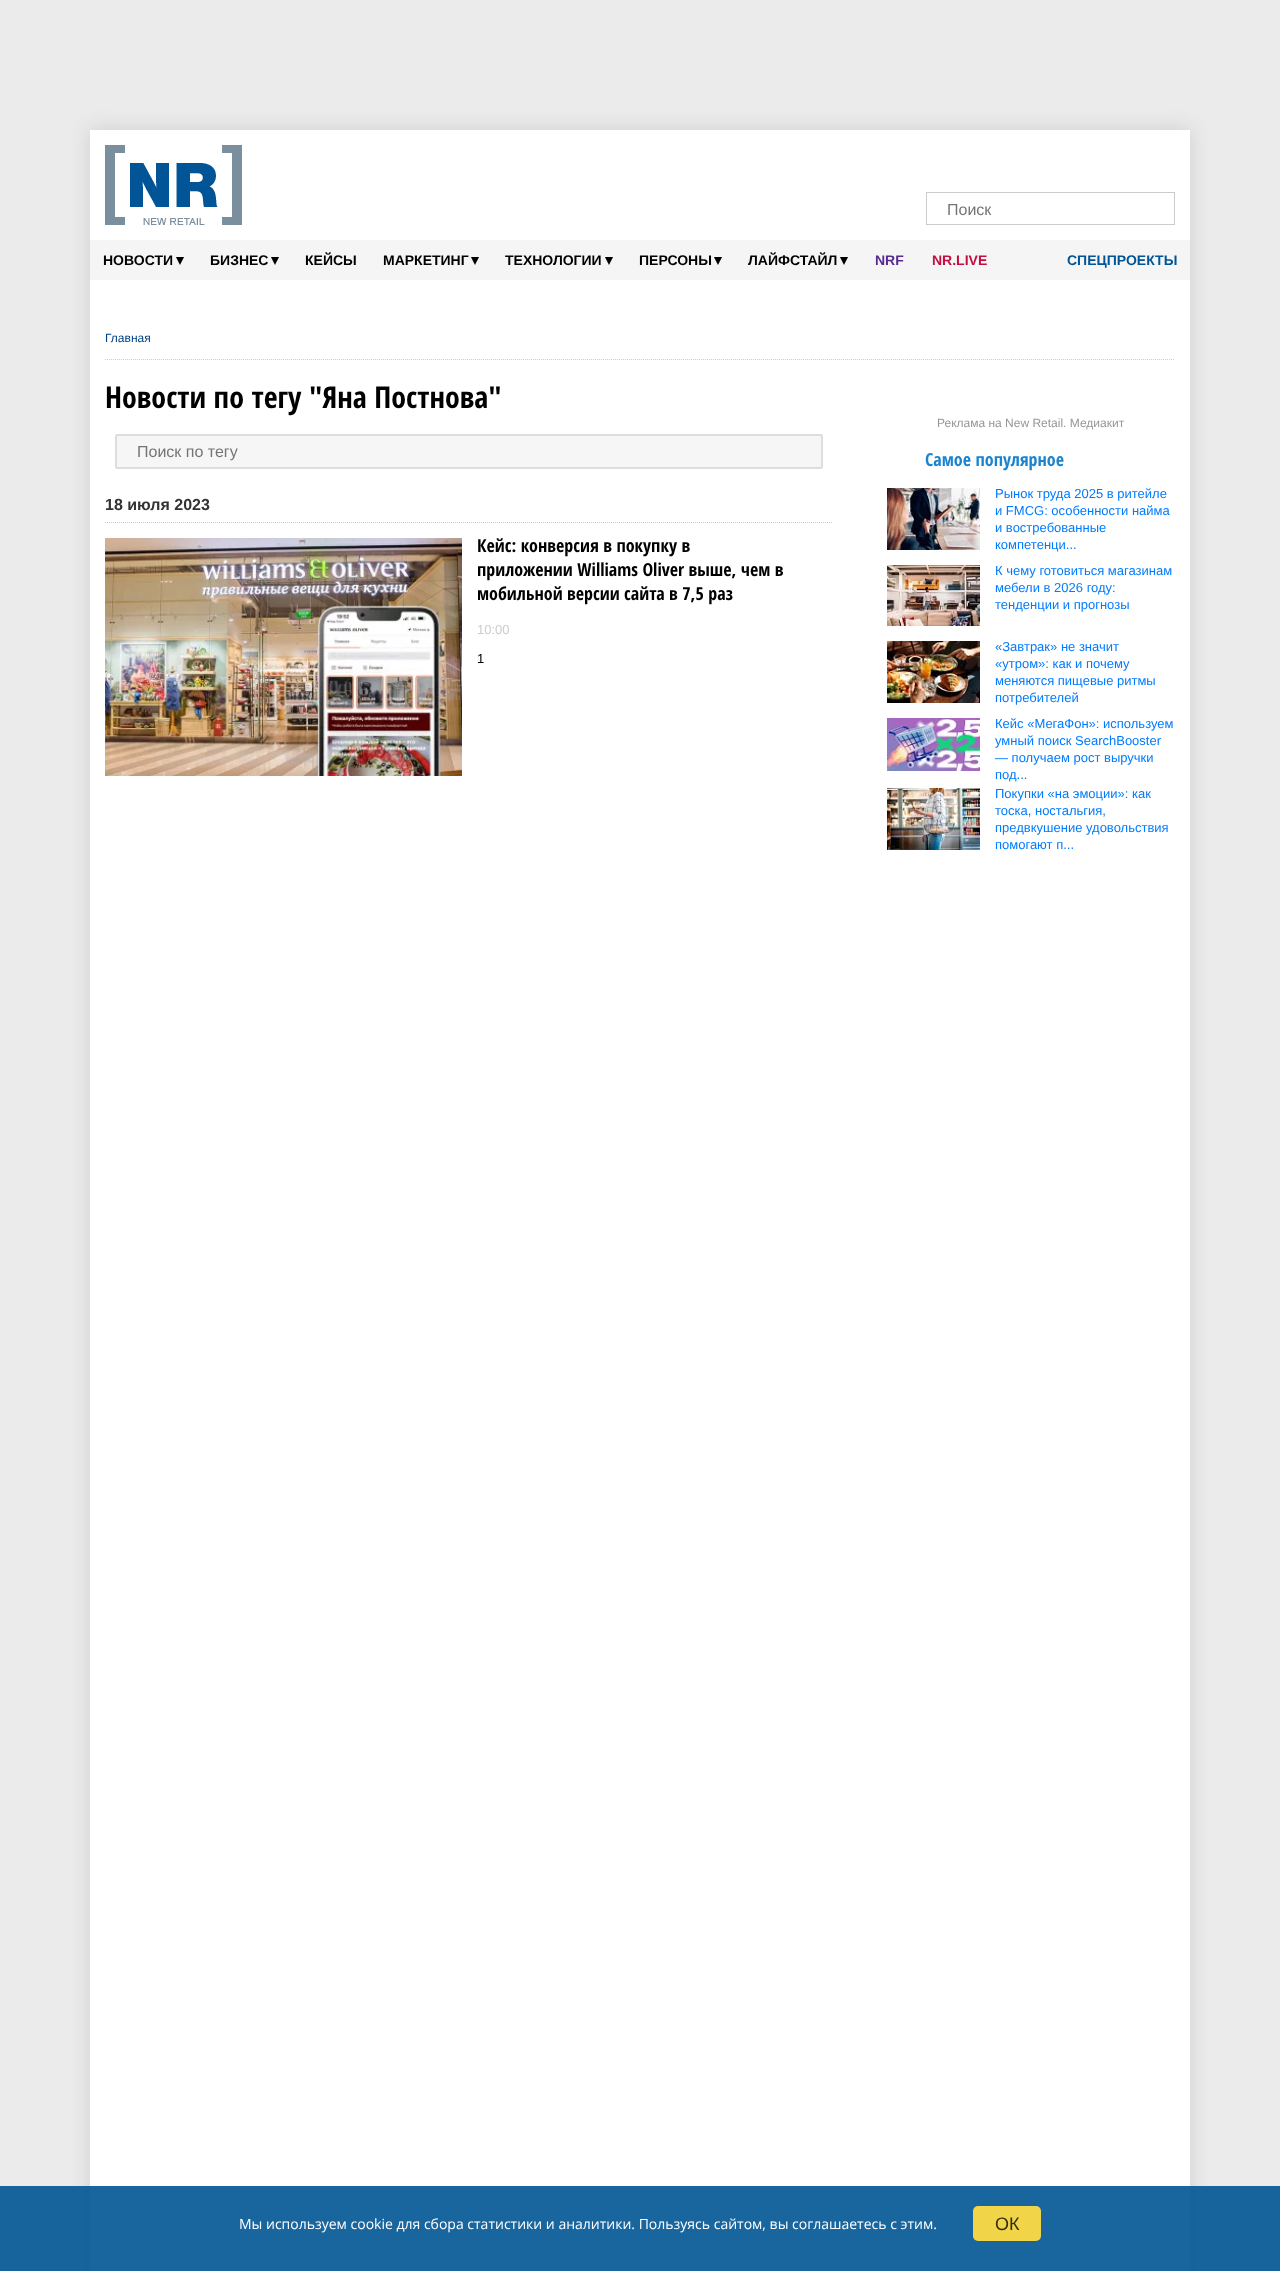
<svg xmlns="http://www.w3.org/2000/svg" xmlns:xlink="http://www.w3.org/1999/xlink" width="1280" height="2271" viewBox="0 0 1280 2271">
<style>
.cls-1{font:16px Liberation Sans;fill:#757575}
.cls-2{font:bold 14px Liberation Sans;fill:#000000}
.cls-3{font:bold 15px DejaVu Sans;fill:#000000}
.cls-4{font:bold 14px Liberation Sans;fill:#582c8f}
.cls-5{font:bold 14px Liberation Sans;fill:#c60d42}
.cls-6{font:bold 14px Liberation Sans;fill:#015496}
.cls-7{font:12px Liberation Sans;fill:#004183}
.cls-8{font:bold 30px Open Sans Condensed;fill:#000000}
.cls-9{font:bold 16px Liberation Sans;fill:#333333}
.cls-10{font:bold 18px Open Sans Condensed;fill:#000000}
.cls-11{font:13px Liberation Sans;fill:#cccccc}
.cls-12{font:13px Liberation Sans;fill:#000000}
.cls-13{font:12px Liberation Sans;fill:#969696}
.cls-14{font:bold 18px Open Sans Condensed;fill:#1b84d0}
.cls-15{font:13px Liberation Sans;fill:#007bff}
.cls-16{font:14px Open Sans;fill:#ffffff}
.cls-17{font:18px Liberation Sans;fill:#342d08}
</style>
<rect width="100%" height="100%" fill="#ebebeb"/>
<rect fill="#cccccc" filter="blur(10px)" x="90" y="130" width="1100" height="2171"/>
<rect fill="#ffffff" x="90" y="130" width="1100" height="2141"/>
<image xlink:href="image0.png" x="105" y="145" width="137" height="80"/>
<rect fill="none" stroke="#cccccc" x="926.5" y="192.5" width="248" height="32"/>
<rect fill="#f5f5f5" x="90" y="240" width="1100" height="40"/>
<path fill="none" stroke="#cccccc" stroke-dasharray="1 1" d="M105 359.5H1175"/>
<rect fill="#f6f6f6" stroke="#dddddd" x="115.5" y="434.5" width="707" height="34" rx="1.5"/>
<rect fill="none" stroke="#dddddd" x="116.5" y="435.5" width="705" height="32"/>
<path fill="none" stroke="#cccccc" stroke-dasharray="1 1" d="M105 522.5H833"/>
<image xlink:href="image1.png" x="105" y="538" width="357" height="238"/>
<image xlink:href="image2.png" x="887" y="488" width="93" height="62"/>
<image xlink:href="image3.png" x="887" y="565" width="93" height="61"/>
<image xlink:href="image4.png" x="887" y="641" width="93" height="62"/>
<image xlink:href="image5.png" x="887" y="718" width="93" height="53"/>
<image xlink:href="image6.png" x="887" y="788" width="93" height="62"/>
<rect fill="#005595" fill-opacity="0.9" x="0" y="2186" width="1280" height="85"/>
<rect fill="#f1d447" x="973" y="2206" width="68" height="35" rx="5"/>
<text class="cls-1" x="947" y="215">Поиск</text>
<text class="cls-2" x="103" y="265">НОВОСТИ</text>
<text class="cls-3" x="176" y="265">▾</text>
<text class="cls-2" x="210" y="265">БИЗНЕС</text>
<text class="cls-3" x="271" y="265">▾</text>
<text class="cls-2" x="305" y="265">КЕЙСЫ</text>
<text class="cls-2" x="383" y="265">МАРКЕТИНГ</text>
<text class="cls-3" x="471" y="265">▾</text>
<text class="cls-2" x="505" y="265">ТЕХНОЛОГИИ</text>
<text class="cls-3" x="605" y="265">▾</text>
<text class="cls-2" x="639" y="265">ПЕРСОНЫ</text>
<text class="cls-3" x="714" y="265">▾</text>
<text class="cls-2" x="748" y="265">ЛАЙФСТАЙЛ</text>
<text class="cls-3" x="840" y="265">▾</text>
<text class="cls-4" x="875" y="265">NRF</text>
<text class="cls-5" x="932" y="265">NR.LIVE</text>
<text class="cls-6" x="1067" y="265">СПЕЦПРОЕКТЫ</text>
<text class="cls-7" x="105" y="342">Главная</text>
<text class="cls-8" x="105" y="408">Новости по тегу "Яна Постнова"</text>
<text class="cls-1" x="137" y="457">Поиск по тегу</text>
<text class="cls-9" x="105" y="510">18 июля 2023</text>
<text class="cls-10"><tspan x="477" y="552">Кейс: конверсия в покупку в</tspan><tspan x="477" y="576">приложении Williams Oliver выше, чем в</tspan><tspan x="477" y="600">мобильной версии сайта в 7,5 раз</tspan></text>
<text class="cls-11" x="477" y="634">10:00</text>
<text class="cls-12" x="477" y="663">1</text>
<text class="cls-13" x="937" y="427">Реклама на New Retail. Медиакит</text>
<text class="cls-14" x="925" y="466">Самое популярное</text>
<text class="cls-15"><tspan x="995" y="498">Рынок труда 2025 в ритейле</tspan><tspan x="995" y="515">и FMCG: особенности найма</tspan><tspan x="995" y="532">и востребованные</tspan><tspan x="995" y="549">компетенци...</tspan></text>
<text class="cls-15"><tspan x="995" y="575">К чему готовиться магазинам</tspan><tspan x="995" y="592">мебели в 2026 году:</tspan><tspan x="995" y="609">тенденции и прогнозы</tspan></text>
<text class="cls-15"><tspan x="995" y="651">«Завтрак» не значит</tspan><tspan x="995" y="668">«утром»: как и почему</tspan><tspan x="995" y="685">меняются пищевые ритмы</tspan><tspan x="995" y="702">потребителей</tspan></text>
<text class="cls-15"><tspan x="995" y="728">Кейс «МегаФон»: используем</tspan><tspan x="995" y="745">умный поиск SearchBooster</tspan><tspan x="995" y="762">— получаем рост выручки</tspan><tspan x="995" y="779">под...</tspan><tspan x="995" y="798">Покупки «на эмоции»: как</tspan><tspan x="995" y="815">тоска, ностальгия,</tspan><tspan x="995" y="832">предвкушение удовольствия</tspan><tspan x="995" y="849">помогают п...</tspan></text>
<text class="cls-16" x="239" y="2229">Мы используем cookie для сбора статистики и аналитики. Пользуясь сайтом, вы соглашаетесь с этим.</text>
<text class="cls-17" x="995" y="2230">ОК</text>
</svg>
